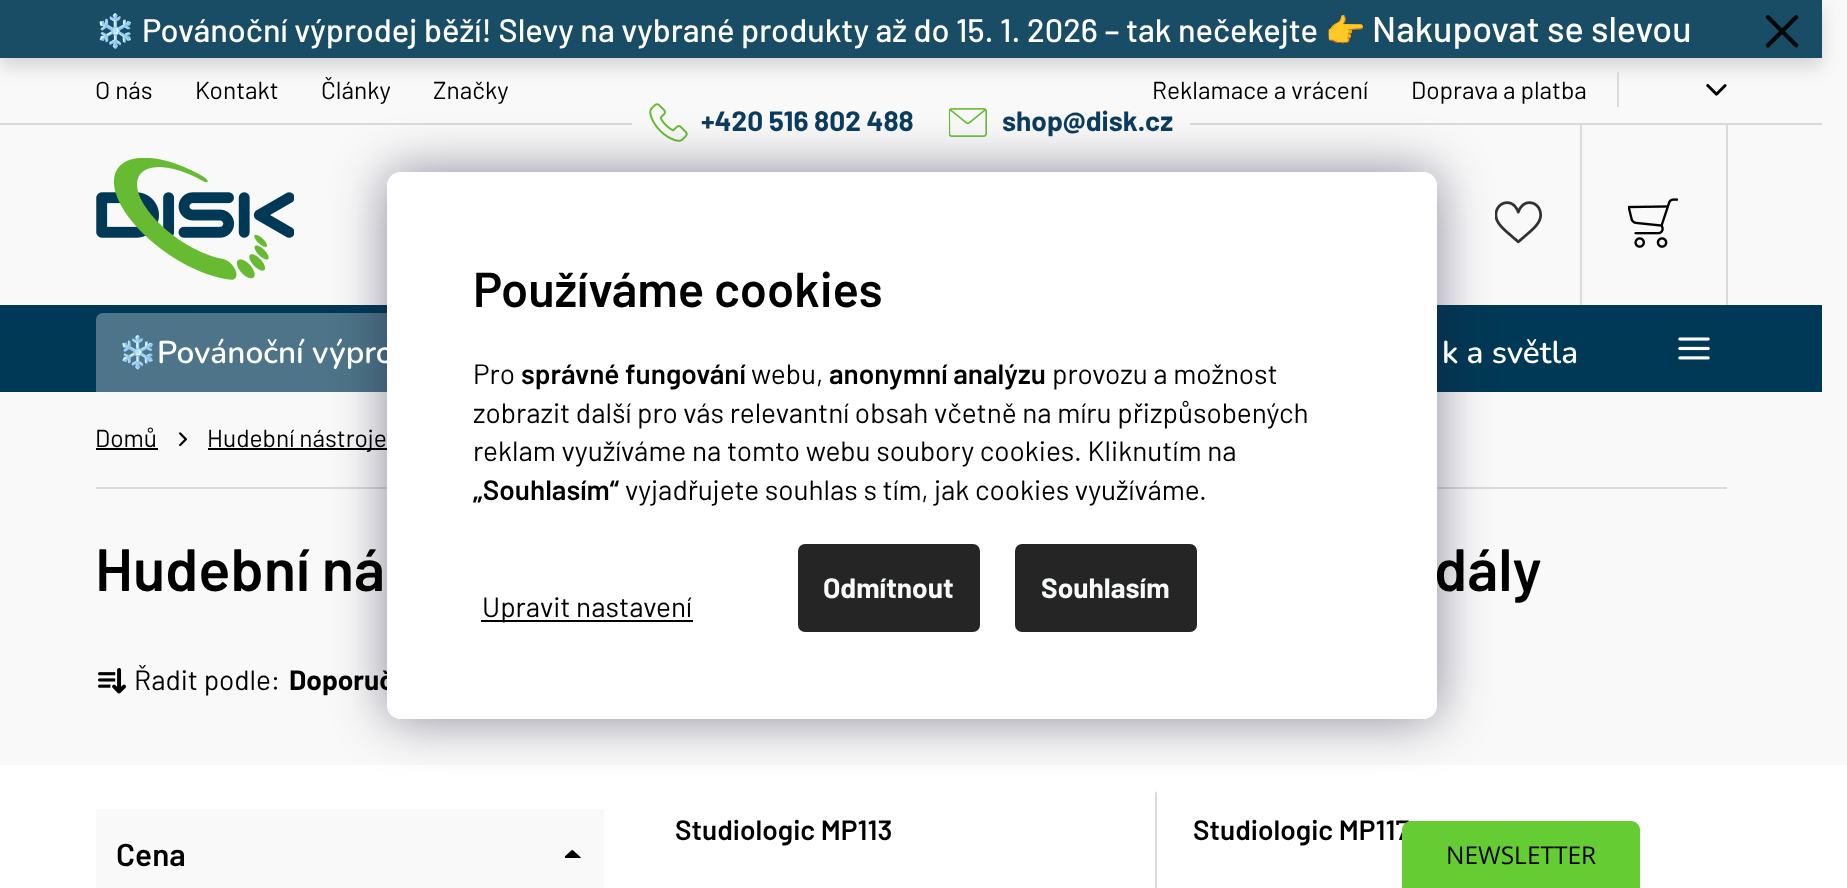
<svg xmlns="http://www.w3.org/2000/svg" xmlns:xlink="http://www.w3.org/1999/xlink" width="1847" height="888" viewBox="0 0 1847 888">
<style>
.cls-1{font:32.6px Noto Color Emoji;fill:#fefefe}
.cls-2{font:500 32.6px Barlow;fill:#fefefe}
.cls-3{font:500 35.9px Barlow;fill:#fefefe}
.cls-4{font:24.5px Barlow;fill:#000000}
.cls-5{font:bold 28px Barlow;fill:#0b3c5d}
.cls-6{font:bold 31.5px Noto Color Emoji;fill:#fefefe}
.cls-7{font:600 31.5px Nunito;fill:#fefefe}
.cls-8{font:600 59.5px Barlow;fill:#000000}
.cls-9{font:28px Barlow;fill:#000000}
.cls-10{font:bold 28px Barlow;fill:#000000}
.cls-11{font:600 28px Barlow;fill:#000000}
.cls-12{font:600 31.5px Barlow;fill:#000000}
.cls-13{font:600 49px Barlow;fill:#000000}
.cls-14{font:bold 28px Barlow;fill:#f8fafb}
.cls-15{font:24.5px Open Sans;fill:#000000}
</style>
<defs>
<clipPath id="clip1"><path d="M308 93H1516V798H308ZM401 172H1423C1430.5 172 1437 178.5 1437 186V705C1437 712.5 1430.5 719 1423 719H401C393.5 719 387 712.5 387 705V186C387 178.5 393.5 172 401 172Z" clip-rule="evenodd"/></clipPath>
</defs>
<rect width="100%" height="100%" fill="#f9f9f9"/>
<rect fill="#191919" fill-opacity="0.16" filter="blur(9px)" x="0" y="9" width="1822" height="58"/>
<rect fill="#194c65" x="0" y="0" width="1822" height="58"/>
<image xlink:href="image0.png" x="1765" y="15" width="34" height="33"/>
<rect fill="#dadada" x="1617" y="72" width="2" height="35"/>
<image xlink:href="image1.png" x="1706" y="84" width="21" height="12"/>
<image xlink:href="image2.png" x="96" y="158" width="198" height="122"/>
<rect fill="#dadada" x="0" y="123" width="1822" height="2"/>
<rect fill="#f9f9f9" x="632" y="123" width="558" height="2"/>
<image xlink:href="image3.png" x="649" y="103" width="39" height="39"/>
<image xlink:href="image4.png" x="949" y="108" width="38" height="29"/>
<image xlink:href="image5.png" x="1495" y="201" width="47" height="43"/>
<rect fill="#dadada" x="1726" y="123" width="2" height="182"/>
<rect fill="#dadada" x="1580" y="123" width="2" height="182"/>
<image xlink:href="image6.png" x="1628" y="198" width="50" height="50"/>
<rect fill="#003955" x="0" y="305" width="1822" height="87"/>
<path fill="#4d7488" d="M103 313H453C457 313 460 316 460 320V392H96V320C96 316 99 313 103 313Z"/>
<image xlink:href="image7.png" x="1678" y="337" width="32" height="23"/>
<rect fill="#000000" x="96" y="448" width="62" height="2"/>
<image xlink:href="image8.png" x="179" y="432" width="8" height="14"/>
<rect fill="#000000" x="208" y="448" width="179" height="2"/>
<rect fill="#dadada" x="96" y="487" width="1631" height="2"/>
<image xlink:href="image9.png" x="98" y="668" width="28" height="26"/>
<rect fill="#ffffff" x="0" y="765" width="1675" height="123"/>
<path fill="#dadada" d="M1157 791V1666L1155 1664V793Z"/>
<path fill="#ffffff" d="M639 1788V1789H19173V765H1675V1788Z"/>
<rect fill="#f9f9f9" x="96" y="809" width="508" height="79"/>
<image xlink:href="image10.png" x="565" y="850" width="16" height="8"/>
<g clip-path="url(#clip1)">
<rect fill="#1b1939" fill-opacity="0.5" filter="blur(26px)" x="387" y="172" width="1050" height="547" rx="14"/>
</g>
<text class="cls-1" x="95" y="42">❄️</text>
<text class="cls-2" x="142" y="42">Povánoční výprodej běží! Slevy na vybrané produkty až do 15. 1. 2026 – tak nečekejte</text>
<text class="cls-1" x="1325" y="42">👉</text>
<text class="cls-3" x="1372" y="42">Nakupovat se slevou</text>
<text class="cls-4" x="95" y="99">O nás</text>
<text class="cls-4" x="195" y="99">Kontakt</text>
<text class="cls-4" x="321" y="99">Články</text>
<text class="cls-4" x="433" y="99">Značky</text>
<text class="cls-4" x="1152" y="99">Reklamace a vrácení</text>
<text class="cls-4" x="1411" y="99">Doprava a platba</text>
<text class="cls-5" x="701" y="131">+420 516 802 488</text>
<text class="cls-5" x="1002" y="131">shop@disk.cz</text>
<text class="cls-6" x="118" y="363">❄️</text>
<text class="cls-7" x="157" y="363">Povánoční výpro</text>
<text class="cls-7" x="1442" y="363">k a světla</text>
<text class="cls-4" x="95" y="447">Domů</text>
<text class="cls-4" x="207" y="447">Hudební nástroje</text>
<text class="cls-8" x="95" y="591">Hudební ná</text>
<text class="cls-8" x="1434" y="591">dály</text>
<text class="cls-9" x="134" y="690">Řadit podle:</text>
<text class="cls-10" x="289" y="690">Doporuč</text>
<text class="cls-11" x="675" y="840">Studiologic MP113</text>
<text class="cls-11" x="1193" y="840">Studiologic MP117</text>
<text class="cls-12" x="116" y="866">Cena</text>
<rect fill="#ffffff" x="387" y="172" width="1050" height="547" rx="14"/>
<text class="cls-13" x="473" y="307">Používáme cookies</text>
<text class="cls-9" x="473" y="384">Pro</text>
<text class="cls-11" x="521" y="384">správné fungování</text>
<text class="cls-9" x="751" y="384">webu,</text>
<text class="cls-11" x="829" y="384">anonymní analýzu</text>
<text class="cls-9" x="1052" y="384">provozu a možnost</text>
<text class="cls-9"><tspan x="473" y="423">zobrazit další pro vás relevantní obsah včetně na míru přizpůsobených</tspan><tspan x="473" y="461">reklam využíváme na tomto webu soubory cookies. Kliknutím na</tspan></text>
<text class="cls-11" x="473" y="500">„Souhlasím“</text>
<text class="cls-9" x="625" y="500">vyjadřujete souhlas s tím, jak cookies využíváme.</text>
<rect fill="#000000" x="481" y="620" width="212" height="2"/>
<text class="cls-9" x="482" y="617">Upravit nastavení</text>
<rect fill="#252525" x="798" y="544" width="182" height="88" rx="7"/>
<text class="cls-14" x="823" y="598">Odmítnout</text>
<rect fill="#252525" x="1015" y="544" width="182" height="88" rx="7"/>
<text class="cls-14" x="1041" y="598">Souhlasím</text>
<path fill="#66cc33" d="M1411 821H1631C1636 821 1640 825 1640 830V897H1402V830C1402 825 1406 821 1411 821Z"/>
<text class="cls-15" x="1446" y="864">NEWSLETTER</text>
</svg>
